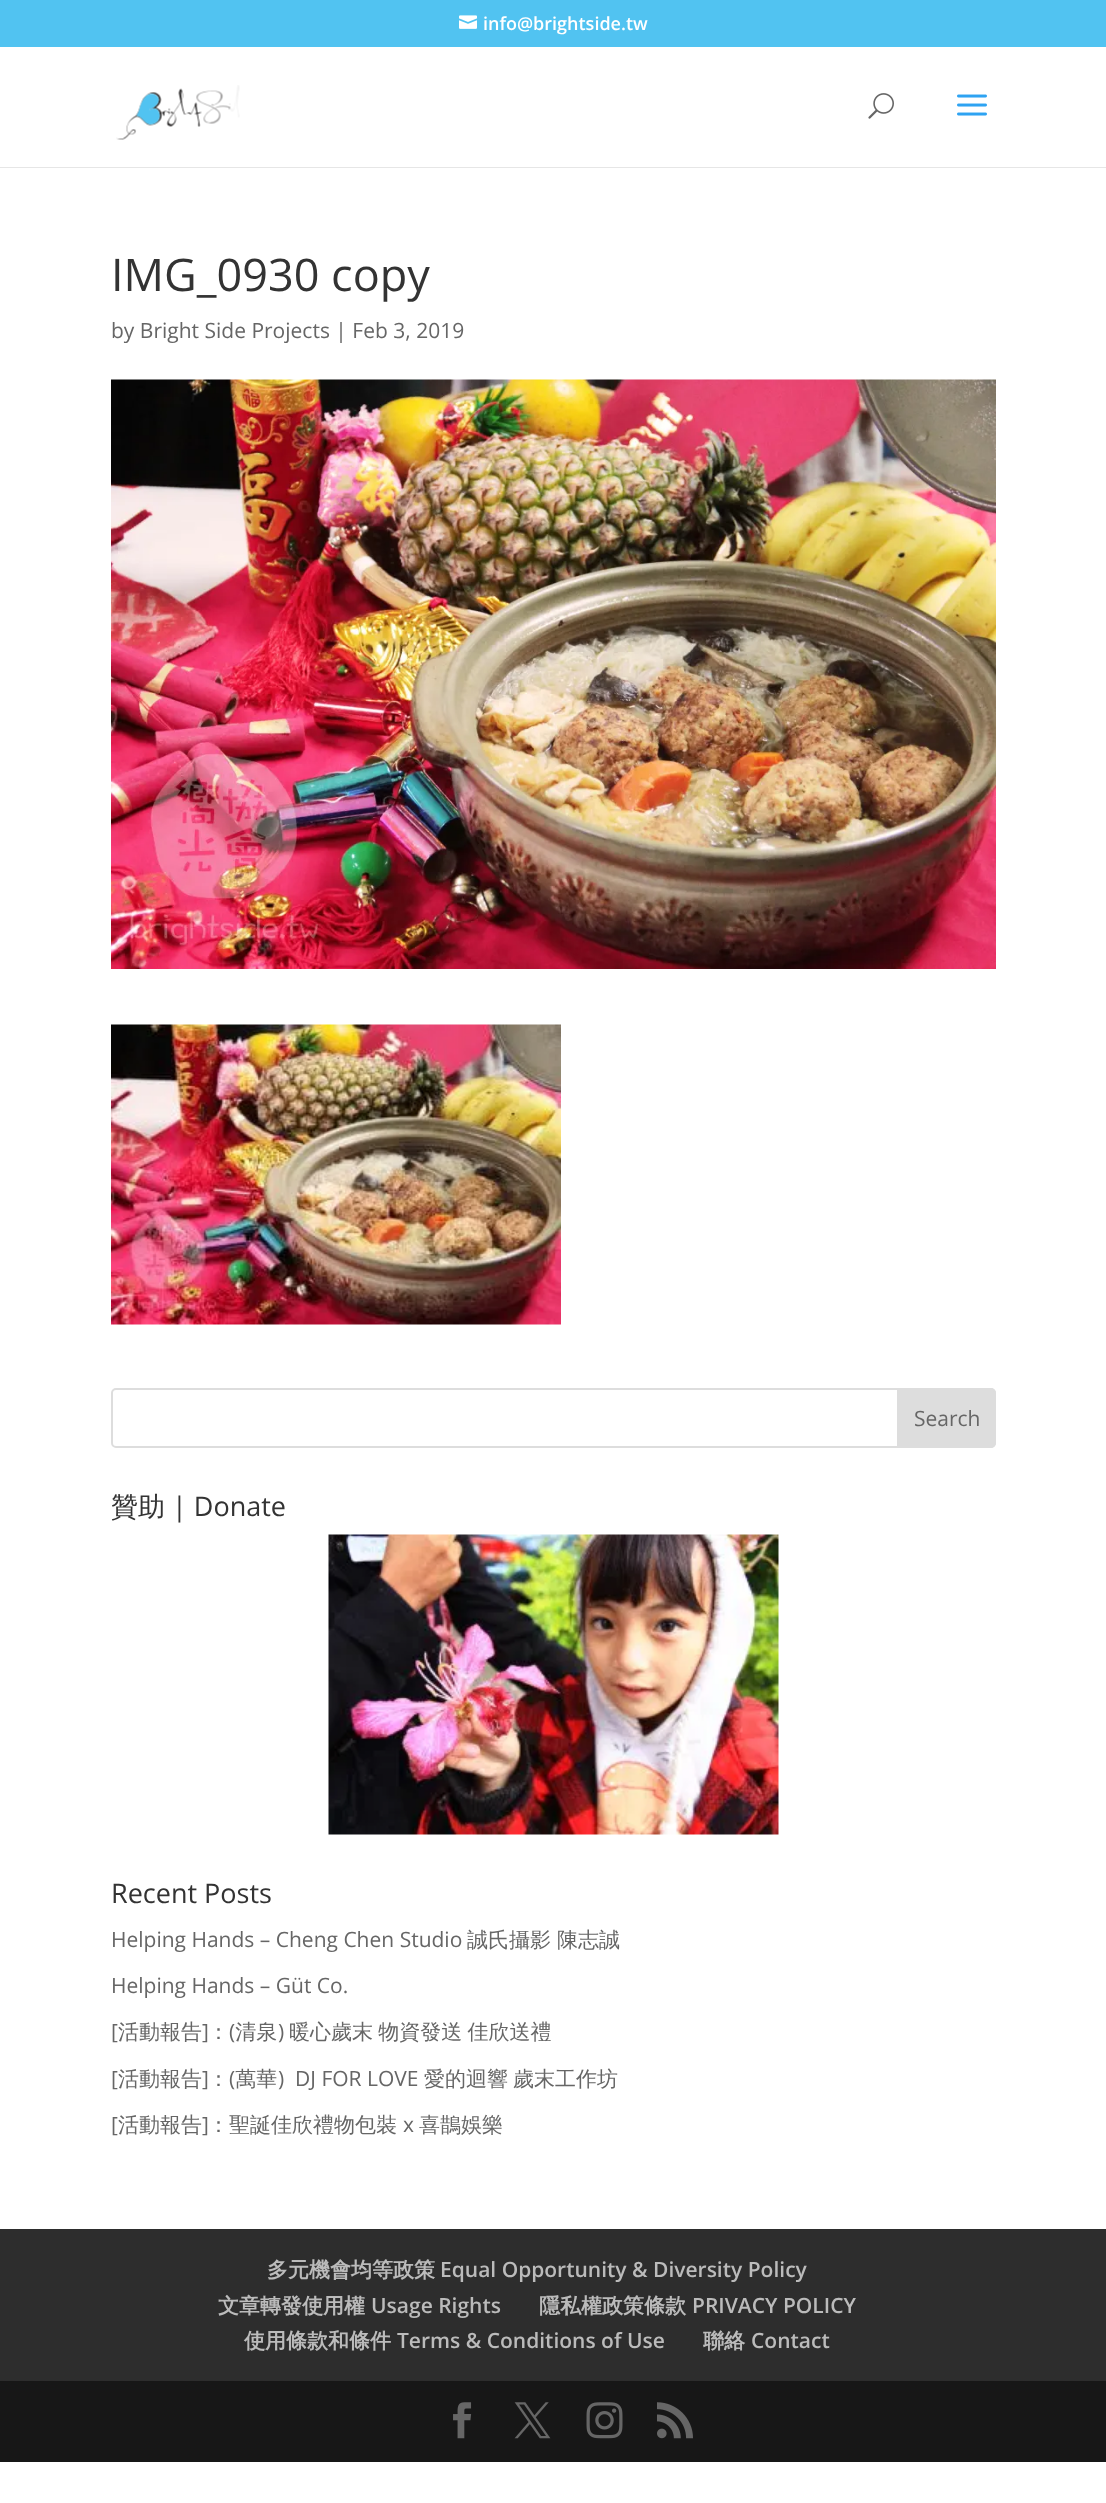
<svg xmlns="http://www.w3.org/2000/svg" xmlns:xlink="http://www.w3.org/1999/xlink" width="1106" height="2503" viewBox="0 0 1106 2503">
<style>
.cls-1{font:600 18px Open Sans;fill:#ffffff}
.cls-2{font:45px Open Sans;fill:#333333}
.cls-3{font:21px Open Sans;fill:#666666}
.cls-4{font:500 27px WenQuanYi Zen Hei;fill:#333333}
.cls-5{font:27px Open Sans;fill:#333333}
.cls-6{font:500 21px WenQuanYi Zen Hei;fill:#666666}
.cls-7{font:bold 21px WenQuanYi Zen Hei;fill:#bbbbbb}
.cls-8{font:600 21px Open Sans;fill:#bbbbbb}
</style>
<rect width="100%" height="100%" fill="#ffffff"/>
<rect fill="#51c3f1" x="0" y="0" width="1106" height="47"/>
<image xlink:href="image0.png" x="459" y="15" width="18" height="14"/>
<rect fill="#e6e6e6" x="0" y="167" width="1106" height="1"/>
<image xlink:href="image1.png" x="116" y="85" width="124" height="55"/>
<image xlink:href="image2.png" x="868" y="93" width="26" height="26"/>
<image xlink:href="image3.png" x="957" y="94" width="30" height="22"/>
<image xlink:href="image4.png" x="111" y="379" width="885" height="590"/>
<image xlink:href="image5.png" x="111" y="1024" width="450" height="301"/>
<rect fill="none" stroke="#dddddd" stroke-width="2" x="112" y="1389" width="883" height="58" rx="4"/>
<path fill="#dddddd" stroke="#dddddd" stroke-width="2" d="M898 1389H991C993 1389 995 1391 995 1393V1443C995 1445 993 1447 991 1447H898Z"/>
<image xlink:href="image6.png" x="328" y="1534" width="451" height="301"/>
<rect fill="#2d2d2d" x="0" y="2229" width="1106" height="152"/>
<rect fill="#171717" x="0" y="2381" width="1106" height="81"/>
<image xlink:href="image7.png" x="453" y="2402" width="19" height="37"/>
<image xlink:href="image8.png" x="514" y="2402" width="37" height="37"/>
<image xlink:href="image9.png" x="586" y="2402" width="37" height="37"/>
<image xlink:href="image10.png" x="657" y="2402" width="36" height="37"/>
<text class="cls-1" x="483" y="30">info@brightside.tw</text>
<text class="cls-2" x="111" y="291">IMG_0930 copy</text>
<text class="cls-3" x="111" y="338">by Bright Side Projects | Feb 3, 2019</text>
<text class="cls-3" x="914" y="1426">Search</text>
<text class="cls-4" x="111" y="1516">贊助</text>
<text class="cls-5" x="172" y="1516">| Donate</text>
<text class="cls-5" x="111" y="1903">Recent Posts</text>
<text class="cls-3" x="111" y="1947">Helping Hands – Cheng Chen Studio</text>
<text class="cls-6" x="467" y="1947">誠氏攝影</text>
<text class="cls-6" x="557" y="1947">陳志誠</text>
<text class="cls-3" x="111" y="1993">Helping Hands – Güt Co.</text>
<text class="cls-3" x="111" y="2039">[</text>
<text class="cls-6" x="118" y="2039">活動報告</text>
<text class="cls-3" x="202" y="2039">]</text>
<text class="cls-6" x="208" y="2039">： 清泉</text>
<text class="cls-6" x="289" y="2039" word-spacing="-1">暖心歲末 物資發送 佳欣送禮</text>
<text class="cls-3" x="229" y="2039">(</text>
<text class="cls-3" x="278" y="2039">)</text>
<text class="cls-3" x="111" y="2086">[</text>
<text class="cls-6" x="118" y="2086">活動報告</text>
<text class="cls-3" x="202" y="2086">]</text>
<text class="cls-6" x="208" y="2086">： 萬華</text>
<text class="cls-3" xml:space="preserve" x="278" y="2086">)  DJ FOR LOVE</text>
<text class="cls-6" x="424" y="2086">愛的迴響</text>
<text class="cls-6" x="513" y="2086">歲末工作坊</text>
<text class="cls-3" x="229" y="2086">(</text>
<text class="cls-3" x="111" y="2132">[</text>
<text class="cls-6" x="118" y="2132">活動報告</text>
<text class="cls-3" x="202" y="2132">]</text>
<text class="cls-6" x="208" y="2132">：聖誕佳欣禮物包裝</text>
<text class="cls-3" x="403" y="2132">x</text>
<text class="cls-6" x="419" y="2132">喜鵲娛樂</text>
<text class="cls-7" x="267" y="2277">多元機會均等政策</text>
<text class="cls-8" x="440" y="2277">Equal Opportunity &amp; Diversity Policy</text>
<text class="cls-7" x="218" y="2313">文章轉發使用權</text>
<text class="cls-8" x="371" y="2313">Usage Rights</text>
<text class="cls-7" x="539" y="2313">隱私權政策條款</text>
<text class="cls-8" x="692" y="2313">PRIVACY POLICY</text>
<text class="cls-7" x="244" y="2348">使用條款和條件</text>
<text class="cls-8" x="397" y="2348">Terms &amp; Conditions of Use</text>
<text class="cls-7" x="703" y="2348">聯絡</text>
<text class="cls-8" x="751" y="2348">Contact</text>
</svg>
